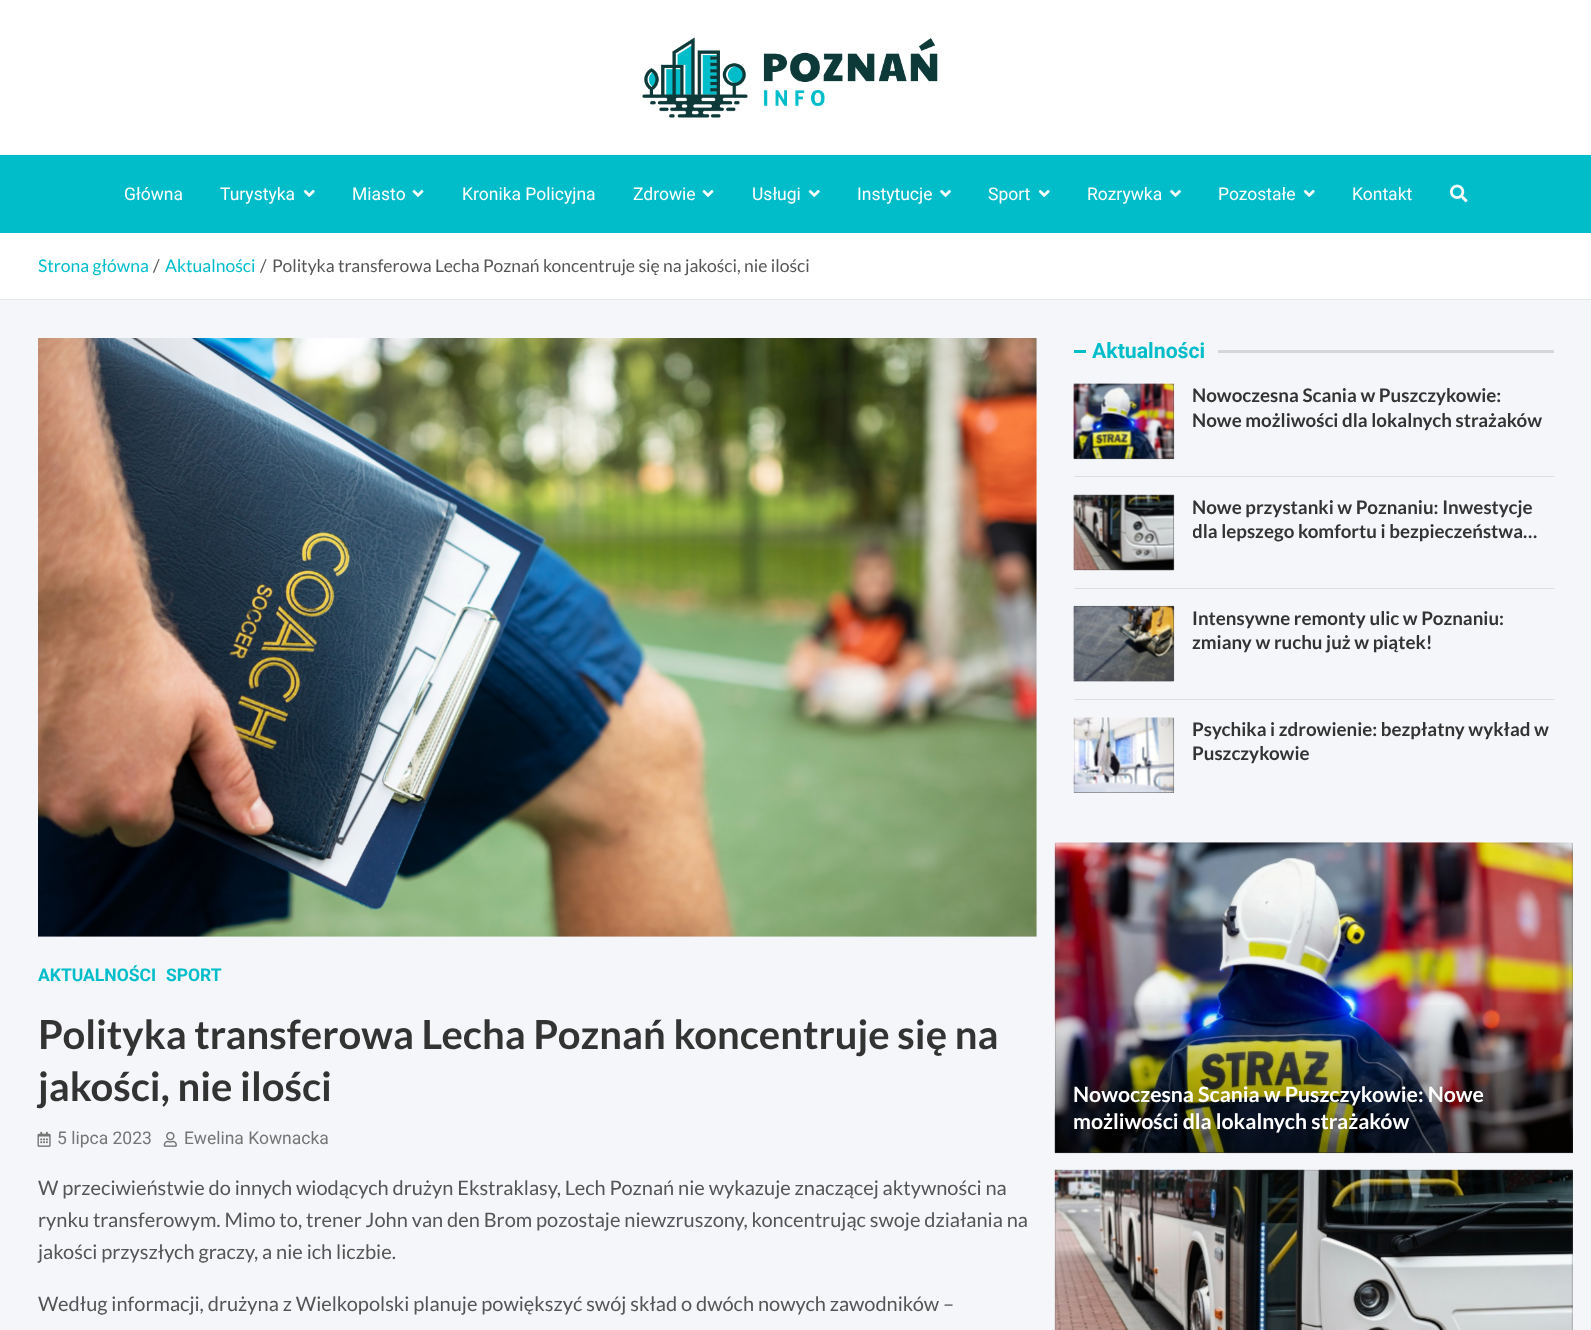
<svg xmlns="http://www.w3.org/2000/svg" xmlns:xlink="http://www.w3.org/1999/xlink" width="1591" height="1330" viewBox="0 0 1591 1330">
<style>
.cls-1{font:17.5px Roboto;fill:#ffffff}
.cls-2{font:17.5px Lato;fill:#01bdca}
.cls-3{font:17.5px Lato;fill:#555555}
.cls-4{font:bold 17.5px Roboto;fill:#01bdca}
.cls-5{font:bold 40px Lato;fill:#333333}
.cls-6{font:17.5px Roboto;fill:#757576}
.cls-7{font:20px Lato;fill:#555555}
.cls-8{font:bold 21.25px Roboto;fill:#01bdca}
.cls-9{font:bold 18.75px Lato;fill:#333333}
.cls-10{font:bold 21.25px Lato;fill:#ffffff}
</style>
<defs>
<linearGradient id="g1" gradientUnits="userSpaceOnUse" x1="1314" y1="843" x2="1314" y2="1153"><stop offset="0.5" stop-color="#000000" stop-opacity="0"/><stop offset="1" stop-color="#000000" stop-opacity="0.5"/></linearGradient>
<clipPath id="clip1"><rect x="1193" y="495" width="361" height="49"/></clipPath>
</defs>
<rect width="100%" height="100%" fill="#f4f6f9"/>
<rect fill="#ffffff" x="0" y="0" width="1591" height="155"/>
<image xlink:href="image0.png" x="642" y="37" width="296" height="81"/>
<rect fill="#01bdca" x="0" y="155" width="1591" height="78"/>
<image xlink:href="image1.png" x="303" y="190" width="12" height="7"/>
<image xlink:href="image2.png" x="412" y="190" width="12" height="7"/>
<image xlink:href="image2.png" x="702" y="190" width="12" height="7"/>
<image xlink:href="image1.png" x="808" y="190" width="12" height="7"/>
<image xlink:href="image3.png" x="940" y="190" width="11" height="7"/>
<image xlink:href="image1.png" x="1038" y="190" width="12" height="7"/>
<image xlink:href="image3.png" x="1170" y="190" width="11" height="7"/>
<image xlink:href="image1.png" x="1303" y="190" width="12" height="7"/>
<image xlink:href="image4.png" x="1450" y="184" width="18" height="19"/>
<rect fill="#ffffff" x="0" y="233" width="1591" height="66"/>
<rect fill="#e6e6e6" x="0" y="299" width="1591" height="1"/>
<image xlink:href="image5.png" x="38" y="338" width="999" height="599"/>
<image xlink:href="image6.png" x="37" y="1131" width="14" height="16"/>
<image xlink:href="image7.png" x="163" y="1131" width="14" height="16"/>
<rect fill="#01bdca" x="1074" y="350" width="12" height="3"/>
<rect fill="#d4d6d8" x="1218" y="350" width="336" height="3"/>
<rect fill="#555555" x="1074" y="384" width="100" height="75"/>
<image xlink:href="image8.png" x="1073" y="383" width="102" height="77"/>
<rect fill="#dcdde0" x="1074" y="476" width="480" height="1"/>
<rect fill="#555555" x="1074" y="495" width="100" height="75"/>
<image xlink:href="image9.png" x="1073" y="494" width="102" height="77"/>
<rect fill="#dcdde0" x="1074" y="588" width="480" height="1"/>
<rect fill="#555555" x="1074" y="606" width="100" height="75"/>
<image xlink:href="image10.png" x="1073" y="605" width="102" height="77"/>
<rect fill="#dcdde0" x="1074" y="699" width="480" height="1"/>
<rect fill="#555555" x="1074" y="718" width="100" height="75"/>
<image xlink:href="image11.png" x="1073" y="717" width="102" height="76"/>
<rect fill="#555555" x="1055" y="843" width="518" height="310"/>
<image xlink:href="image12.png" x="1054" y="842" width="519" height="312"/>
<rect fill="url(#g1)" x="1055" y="1005" width="518" height="148"/>
<rect fill="#555555" x="1055" y="1170" width="518" height="160"/>
<image xlink:href="image13.png" x="1054" y="1169" width="519" height="161"/>
<text class="cls-1" x="124" y="200">Główna</text>
<text class="cls-1" x="220" y="200">Turystyka</text>
<text class="cls-1" x="352" y="200">Miasto</text>
<text class="cls-1" x="462" y="200">Kronika Policyjna</text>
<text class="cls-1" x="633" y="200">Zdrowie</text>
<text class="cls-1" x="752" y="200">Usługi</text>
<text class="cls-1" x="857" y="200">Instytucje</text>
<text class="cls-1" x="988" y="200">Sport</text>
<text class="cls-1" x="1087" y="200">Rozrywka</text>
<text class="cls-1" x="1218" y="200">Pozostałe</text>
<text class="cls-1" x="1352" y="200">Kontakt</text>
<text class="cls-2" x="38" y="272">Strona główna</text>
<text class="cls-3" x="153" y="272">/</text>
<text class="cls-2" x="165" y="272">Aktualności</text>
<text class="cls-3" x="260" y="272">/</text>
<text class="cls-3" x="272" y="272">Polityka transferowa Lecha Poznań koncentruje się na jakości, nie ilości</text>
<text class="cls-4" x="38" y="981">AKTUALNOŚCI</text>
<text class="cls-4" x="166" y="981">SPORT</text>
<text class="cls-5"><tspan x="38" y="1049">Polityka transferowa Lecha Poznań koncentruje się na</tspan><tspan x="38" y="1101">jakości, nie ilości</tspan></text>
<text class="cls-6" x="57" y="1144">5 lipca 2023</text>
<text class="cls-6" x="184" y="1144">Ewelina Kownacka</text>
<text class="cls-7"><tspan x="38" y="1195">W przeciwieństwie do innych wiodących drużyn Ekstraklasy, Lech Poznań nie wykazuje znaczącej aktywności na</tspan><tspan x="38" y="1227">rynku transferowym. Mimo to, trener John van den Brom pozostaje niewzruszony, koncentrując swoje działania na</tspan><tspan x="38" y="1259">jakości przyszłych graczy, a nie ich liczbie.</tspan></text>
<text class="cls-7" x="38" y="1311">Według informacji, drużyna z Wielkopolski planuje powiększyć swój skład o dwóch nowych zawodników –</text>
<text class="cls-8" x="1092" y="358">Aktualności</text>
<text class="cls-9"><tspan x="1192" y="402">Nowoczesna Scania w Puszczykowie:</tspan><tspan x="1192" y="427">Nowe możliwości dla lokalnych strażaków</tspan></text>
<text class="cls-9" x="1192" y="514">Nowe przystanki w Poznaniu: Inwestycje</text>
<g clip-path="url(#clip1)">
<text class="cls-9" x="1192" y="538">dla lepszego komfortu i bezpieczeństwa…</text>
</g>
<text class="cls-9"><tspan x="1192" y="625">Intensywne remonty ulic w Poznaniu:</tspan><tspan x="1192" y="649">zmiany w ruchu już w piątek!</tspan></text>
<text class="cls-9"><tspan x="1192" y="736">Psychika i zdrowienie: bezpłatny wykład w</tspan><tspan x="1192" y="760">Puszczykowie</tspan></text>
<text class="cls-10"><tspan x="1073" y="1102">Nowoczesna Scania w Puszczykowie: Nowe</tspan><tspan x="1073" y="1129">możliwości dla lokalnych strażaków</tspan></text>
</svg>
